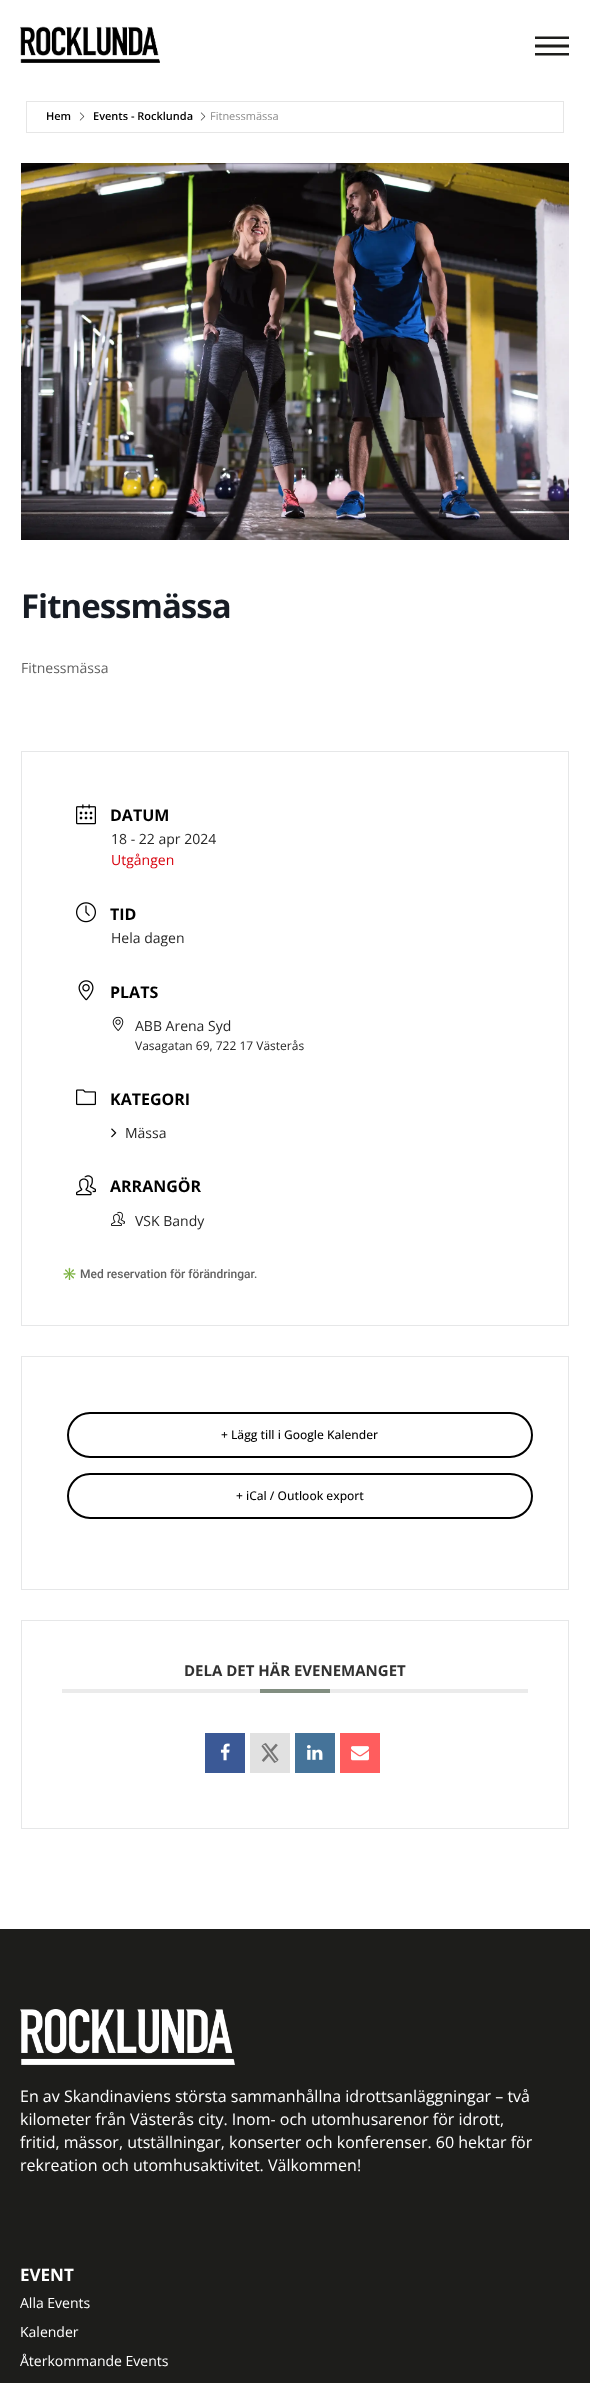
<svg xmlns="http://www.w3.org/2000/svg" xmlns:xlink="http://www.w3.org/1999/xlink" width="590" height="2383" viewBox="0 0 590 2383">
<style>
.cls-1{font:600 11px Open Sans;fill:#000000}
.cls-2{font:11px Open Sans;fill:#8d8d8d}
.cls-3{font:bold 33px Open Sans;letter-spacing:-1px;fill:#171c24}
.cls-4{font:14px Open Sans;fill:#616161}
.cls-5{font:bold 16px Open Sans;fill:#000000}
.cls-6{font:14px Open Sans;fill:#262626}
.cls-7{font:14px Open Sans;fill:#d8000c}
.cls-8{font:12px Open Sans;fill:#262626}
.cls-9{font:12px Noto Color Emoji;fill:#616161}
.cls-10{font:500 12px Roboto;fill:#616161}
.cls-11{font:500 12px Open Sans;fill:#000000}
.cls-12{font:bold 15px Open Sans;fill:#313131}
.cls-13{font:16px Open Sans;fill:#ffffff}
.cls-14{font:bold 17px Open Sans;fill:#ffffff}
.cls-15{font:14px Open Sans;fill:#ffffff}
</style>
<rect width="100%" height="100%" fill="#ffffff"/>
<image xlink:href="image0.png" x="20" y="26" width="140" height="37"/>
<path fill="#1d1d1b" d="M535 44.5H569V47.5H535ZM535 53H569V55.5H535ZM535 36.5H569V39H535Z"/>
<rect fill="none" stroke="#e6e6e6" x="26.5" y="101.5" width="537" height="31"/>
<image xlink:href="image1.png" x="79" y="112" width="6" height="9"/>
<image xlink:href="image1.png" x="200" y="112" width="6" height="9"/>
<image xlink:href="image2.png" x="21" y="163" width="548" height="377"/>
<rect fill="none" stroke="#e6e7e8" x="21.5" y="751.5" width="547" height="574"/>
<image xlink:href="image3.png" x="76" y="804" width="20" height="21"/>
<image xlink:href="image4.png" x="76" y="902" width="20" height="21"/>
<image xlink:href="image5.png" x="78" y="980" width="16" height="21"/>
<image xlink:href="image6.png" x="112" y="1016" width="12" height="15"/>
<image xlink:href="image7.png" x="76" y="1089" width="20" height="17"/>
<image xlink:href="image8.png" x="111" y="1128" width="6" height="10"/>
<image xlink:href="image9.png" x="76" y="1175" width="20" height="21"/>
<image xlink:href="image10.png" x="111" y="1211" width="14" height="15"/>
<rect fill="none" stroke="#e6e7e8" x="21.5" y="1356.5" width="547" height="233"/>
<rect fill="none" stroke="#000000" stroke-width="2" x="68" y="1413" width="464" height="44" rx="22"/>
<rect fill="none" stroke="#000000" stroke-width="2" x="68" y="1474" width="464" height="44" rx="22"/>
<rect fill="none" stroke="#e6e7e8" x="21.5" y="1620.5" width="547" height="208"/>
<rect fill="#ebebeb" x="62" y="1689" width="466" height="4"/>
<rect fill="#828e81" x="260" y="1689" width="70" height="4"/>
<rect fill="#3b5996" x="205" y="1733" width="40" height="40"/>
<image xlink:href="image11.png" x="220" y="1743" width="10" height="18"/>
<rect fill="#e1e1e1" x="250" y="1733" width="40" height="40"/>
<image xlink:href="image12.png" x="261" y="1743" width="18" height="20"/>
<rect fill="#457399" x="295" y="1733" width="40" height="40"/>
<image xlink:href="image13.png" x="307" y="1745" width="16" height="15"/>
<rect fill="#ff5d5e" x="340" y="1733" width="40" height="40"/>
<image xlink:href="image14.png" x="351" y="1746" width="18" height="15"/>
<rect fill="#1d1d1b" x="0" y="1929" width="590" height="454"/>
<image xlink:href="image15.png" x="20" y="2009" width="215" height="56"/>
<text class="cls-1" x="46" y="120">Hem</text>
<text class="cls-1" x="93" y="120">Events - Rocklunda</text>
<text class="cls-2" x="210" y="120">Fitnessmässa</text>
<text class="cls-3" x="21" y="618">Fitnessmässa</text>
<text class="cls-4" x="21" y="673">Fitnessmässa</text>
<text class="cls-5" x="110" y="821">DATUM</text>
<text class="cls-6" x="111" y="844">18 - 22 apr 2024</text>
<text class="cls-7" x="111" y="865">Utgången</text>
<text class="cls-5" x="110" y="920">TID</text>
<text class="cls-6" x="111" y="943">Hela dagen</text>
<text class="cls-5" x="110" y="998">PLATS</text>
<text class="cls-6" x="135" y="1031">ABB Arena Syd</text>
<text class="cls-8" x="135" y="1050">Vasagatan 69, 722 17 Västerås</text>
<text class="cls-5" x="110" y="1105">KATEGORI</text>
<text class="cls-6" x="125" y="1138">Mässa</text>
<text class="cls-5" x="110" y="1192">ARRANGÖR</text>
<text class="cls-6" x="135" y="1226">VSK Bandy</text>
<text class="cls-9" x="62" y="1278">✳</text>
<text class="cls-10" x="80" y="1278">Med reservation för förändringar.</text>
<text class="cls-11" x="221" y="1439">+ Lägg till i Google Kalender</text>
<text class="cls-11" x="236" y="1500">+ iCal / Outlook export</text>
<text class="cls-12" x="184" y="1676">DELA DET HÄR EVENEMANGET</text>
<text class="cls-13"><tspan x="20" y="2102">En av Skandinaviens största sammanhållna idrottsanläggningar – två</tspan><tspan x="20" y="2125">kilometer från Västerås city. Inom- och utomhusarenor för idrott,</tspan><tspan x="20" y="2148">fritid, mässor, utställningar, konserter och konferenser. 60 hektar för</tspan><tspan x="20" y="2171">rekreation och utomhusaktivitet. Välkommen!</tspan></text>
<text class="cls-14" x="20" y="2281">EVENT</text>
<text class="cls-15" x="20" y="2308">Alla Events</text>
<text class="cls-15" x="20" y="2337">Kalender</text>
<text class="cls-15" x="20" y="2366">Återkommande Events</text>
</svg>
